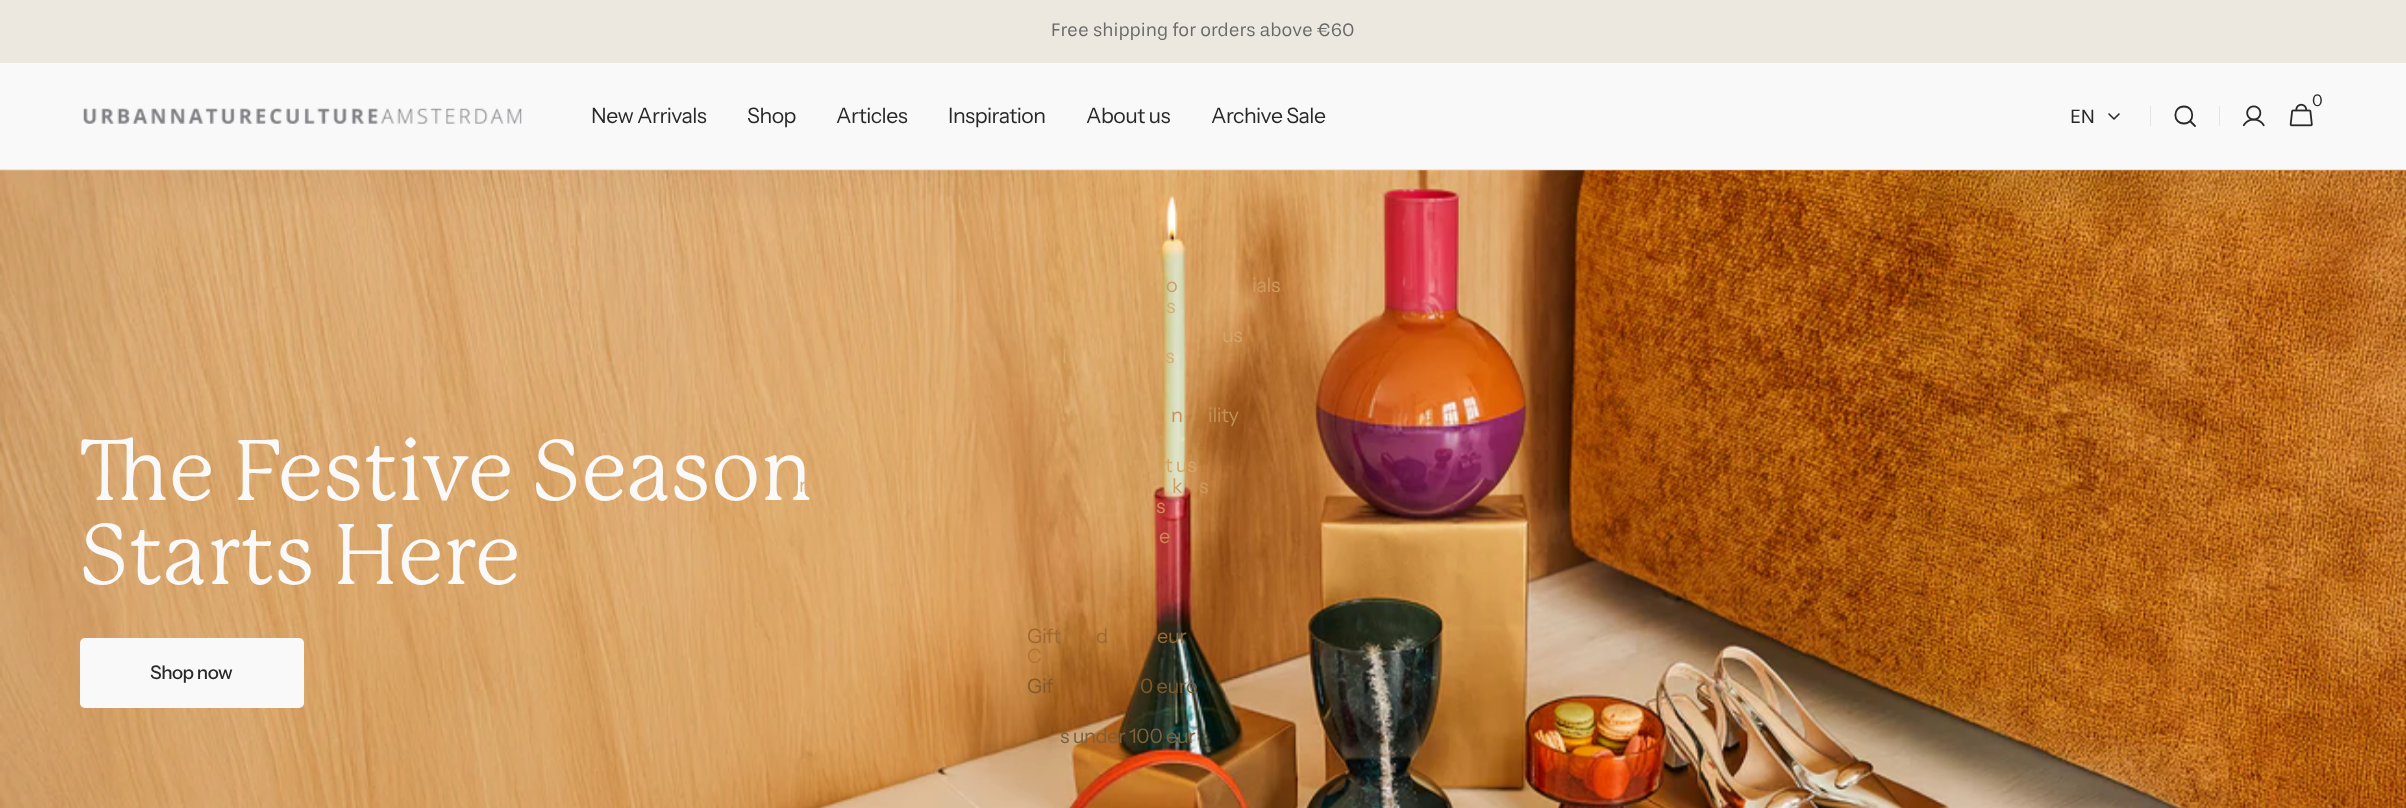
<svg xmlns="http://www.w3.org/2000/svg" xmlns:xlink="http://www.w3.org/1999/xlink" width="2406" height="808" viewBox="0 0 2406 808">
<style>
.cls-1{font:18.75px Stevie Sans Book;fill:#696969}
.cls-2{font:84px 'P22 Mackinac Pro';fill:#f9f9f9}
.cls-3{font:500 18.75px Instrument Sans;letter-spacing:-0.5px;fill:#282828}
.cls-4{font:21.25px Instrument Sans;letter-spacing:-0.5px;fill:#282828}
.cls-5{font:20px Instrument Sans;letter-spacing:-0.4px;fill:#daab6d}
.cls-6{font:20px Instrument Sans;letter-spacing:-0.4px;fill:#e0b078}
.cls-7{font:20px Instrument Sans;letter-spacing:-0.4px;fill:#d09b60}
.cls-8{font:20px Instrument Sans;letter-spacing:-0.4px;fill:#cf8852}
.cls-9{font:20px Instrument Sans;letter-spacing:-0.4px;fill:#d19156}
.cls-10{font:20px Instrument Sans;letter-spacing:-0.4px;fill:#b47430}
.cls-11{font:20px Instrument Sans;letter-spacing:-0.4px;fill:#9e6931}
.cls-12{font:20px Instrument Sans;letter-spacing:-0.4px;fill:#845929}
.cls-13{font:20px Instrument Sans;letter-spacing:-0.4px;fill:#7c613c}
.cls-14{font:20px Instrument Sans;letter-spacing:-0.4px;fill:#d5a569}
.cls-15{font:20px Instrument Sans;letter-spacing:-0.4px;fill:#c59054}
.cls-16{font:16px Instrument Sans;fill:#282828}
.cls-17{font:20px Stevie Sans Book;fill:#282828}
</style>
<rect width="100%" height="100%" fill="#f9f9f9"/>
<rect fill="#ece8e0" x="0" y="0" width="2406" height="63"/>
<image xlink:href="image0.png" x="0" y="170" width="2406" height="638"/>
<rect fill="#f9f9f9" x="80" y="638" width="224" height="70" rx="5"/>
<image xlink:href="image1.png" x="83" y="108" width="439" height="16"/>
<image xlink:href="image2.png" x="2289" y="103" width="24" height="24"/>
<image xlink:href="image3.png" x="2242" y="105" width="23" height="22"/>
<path fill="none" stroke="#282828" stroke-width="1.6" stroke-linecap="round" stroke-linejoin="round" d="M2119 114L2114 119L2109 114"/>
<rect fill="#e5e5e5" x="2150" y="106" width="1" height="20"/>
<path fill="none" stroke="#282828" stroke-width="1.8" stroke-linecap="round" stroke-linejoin="round" d="M2184 123.5C2195 123.5 2195 106.5 2184 106.5C2172.5 106.5 2172.5 123.5 2184 123.5ZM2190 121L2195 126"/>
<rect fill="#e5e5e5" x="2219" y="106" width="1" height="20"/>
<rect fill="#e5e5e5" x="0" y="169" width="2406" height="1"/>
<text class="cls-1" x="1051" y="36">Free shipping for orders above €60</text>
<text class="cls-2"><tspan x="80" y="500">The Festive Season</tspan><tspan x="80" y="584">Starts Here</tspan></text>
<text class="cls-3" x="150" y="679">Shop now</text>
<text class="cls-4" x="591" y="123">New Arrivals</text>
<text class="cls-4" x="747" y="123">Shop</text>
<text class="cls-5" x="1166" y="313">s</text>
<text class="cls-5" x="1062" y="363">l</text>
<text class="cls-5" x="1165" y="363">s</text>
<text class="cls-6" x="799" y="492">r</text>
<text class="cls-7" x="1172" y="493">k</text>
<text class="cls-7" x="1199" y="493">s</text>
<text class="cls-8" x="1159" y="543">e</text>
<text class="cls-9" x="1156" y="513">s</text>
<text class="cls-10" x="1027" y="663">C</text>
<text class="cls-11" x="1027" y="643">Gift</text>
<text class="cls-11" x="1096" y="643">d</text>
<text class="cls-11" x="1157" y="643">eur</text>
<text class="cls-12" x="1027" y="693">Gif</text>
<text class="cls-12" x="1140" y="693">0 euro</text>
<text class="cls-13" x="1060" y="743">s under 100 eur</text>
<text class="cls-4" x="836" y="123">Articles</text>
<text class="cls-4" x="948" y="123">Inspiration</text>
<text class="cls-4" x="1086" y="123">About us</text>
<text class="cls-7" x="1166" y="292">o</text>
<text class="cls-7" x="1252" y="292">ials</text>
<text class="cls-14" x="1222" y="342">us</text>
<text class="cls-15" x="1171" y="422">n</text>
<text class="cls-15" x="1208" y="422">ility</text>
<text class="cls-14" x="1165" y="472">t us</text>
<text class="cls-4" x="1211" y="123">Archive Sale</text>
<text class="cls-16" x="2312" y="106">0</text>
<text class="cls-17" x="2070" y="123">EN</text>
</svg>
